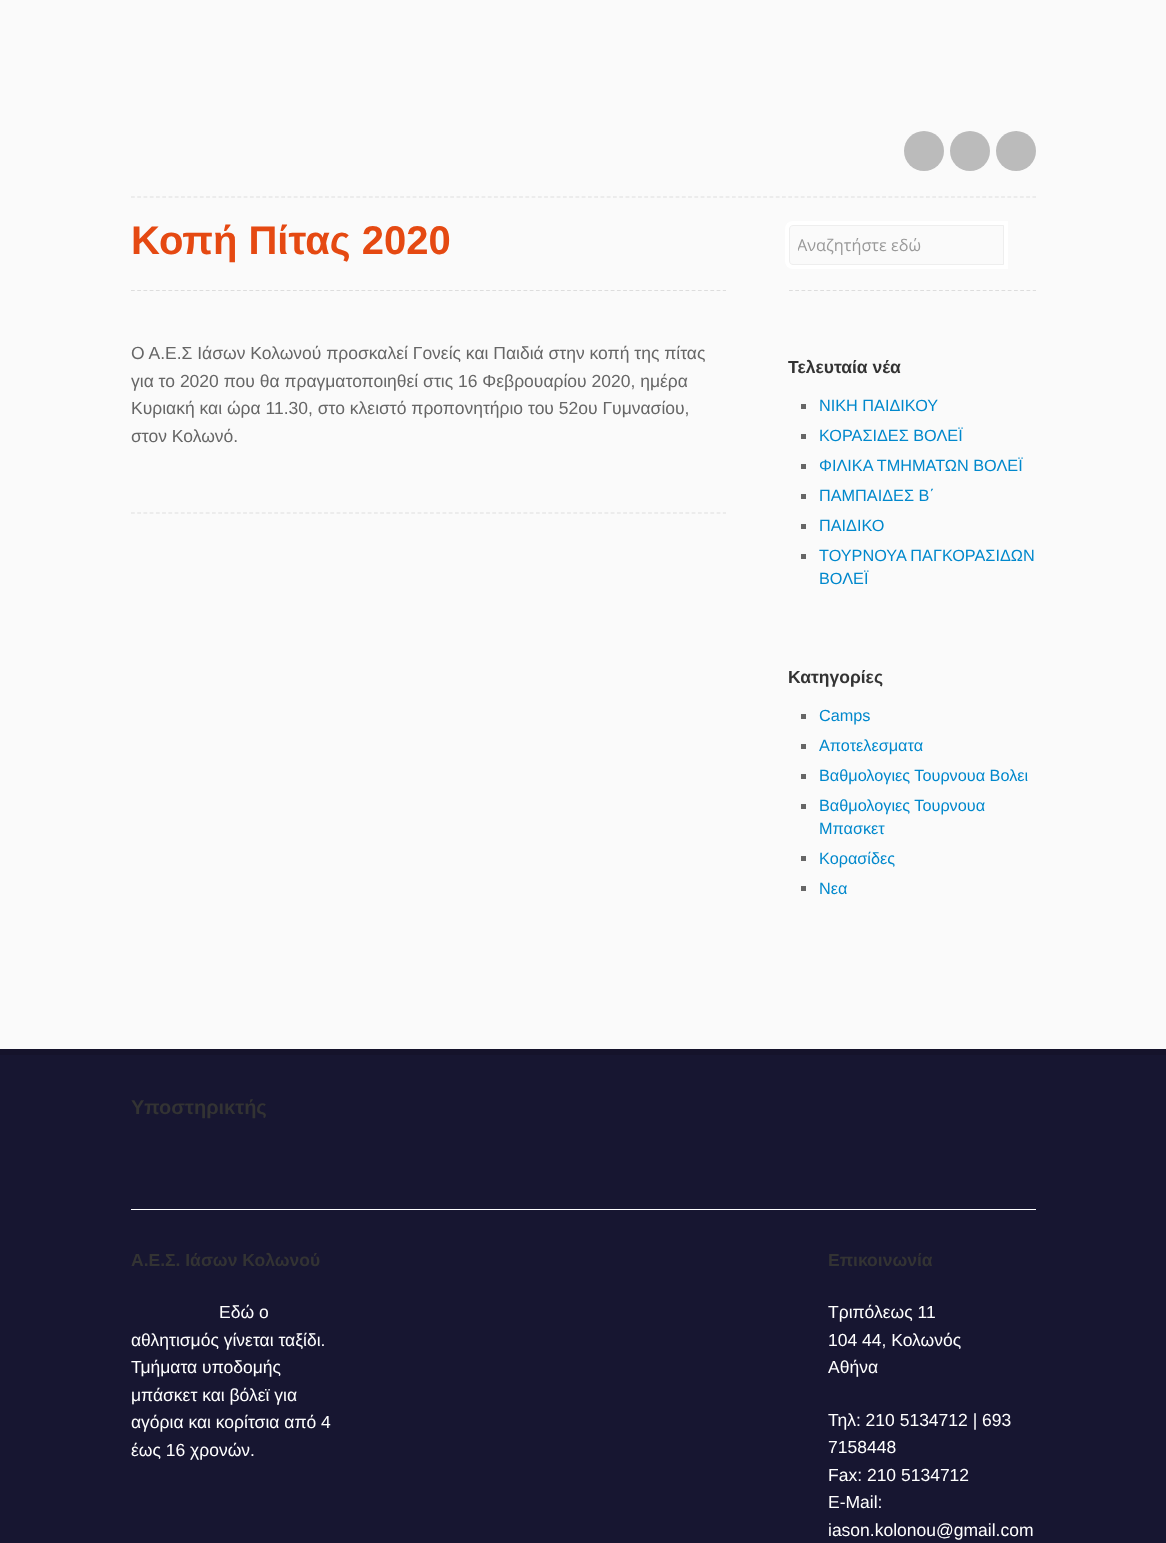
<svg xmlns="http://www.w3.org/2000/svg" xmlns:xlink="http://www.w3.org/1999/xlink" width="1166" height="1543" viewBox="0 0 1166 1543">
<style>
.cls-1{font:bold 40px Liberation Sans;fill:#e54912}
.cls-2{font:17.5px Liberation Sans;fill:#666666}
.cls-3{font:16.25px Open Sans;fill:#999999}
.cls-4{font:bold 17.5px Liberation Sans;fill:#333333}
.cls-5{font:16.25px Liberation Sans;fill:#0088cc}
.cls-6{font:bold 20px Liberation Sans;fill:#333333}
.cls-7{font:17.5px Liberation Sans;fill:#ffffff}
</style>
<defs>
<clipPath id="clip1"><rect x="798" y="234" width="197" height="22"/></clipPath>
</defs>
<rect width="100%" height="100%" fill="#fafafa"/>
<path fill="none" stroke="#dddddd" stroke-width="1.2" stroke-dasharray="3.75 2.51" d="M131 197H1036"/>
<circle fill="#bbbbbb" cx="924" cy="151" r="20"/>
<circle fill="#bbbbbb" cx="970" cy="151" r="20"/>
<circle fill="#bbbbbb" cx="1016" cy="151" r="20"/>
<path fill="none" stroke="#dddddd" stroke-width="1.2" stroke-dasharray="3.75 2.48" d="M131 290.5H726"/>
<path fill="none" stroke="#dddddd" stroke-width="1.2" stroke-dasharray="3.75 2.48" d="M131 513H726"/>
<path fill="none" stroke="#dddddd" stroke-width="1.2" stroke-dasharray="3.75 2.5" d="M789 290.5H1036"/>
<path fill="none" stroke="#eeeeee" d="M793 225.5H1003.5V264.5H793C791 264.5 789.5 263 789.5 261V229C789.5 227 791 225.5 793 225.5Z"/>
<path fill="none" stroke="#ffffff" stroke-width="4" d="M793 223H1006V267H793C789.5 267 787 264.5 787 261V229C787 225.5 789.5 223 793 223Z"/>
<rect fill="#666666" x="801" y="404" width="5" height="5"/>
<rect fill="#666666" x="801" y="434" width="5" height="5"/>
<rect fill="#666666" x="801" y="464" width="5" height="5"/>
<rect fill="#666666" x="801" y="494" width="5" height="5"/>
<rect fill="#666666" x="801" y="524" width="5" height="5"/>
<rect fill="#666666" x="801" y="554" width="5" height="5"/>
<rect fill="#666666" x="801" y="714" width="5" height="5"/>
<rect fill="#666666" x="801" y="744" width="5" height="5"/>
<rect fill="#666666" x="801" y="774" width="5" height="5"/>
<rect fill="#666666" x="801" y="804" width="5" height="5"/>
<rect fill="#666666" x="801" y="856" width="5" height="5"/>
<rect fill="#666666" x="801" y="886" width="5" height="5"/>
<rect fill="#171631" x="0" y="1055" width="1166" height="488"/>
<rect fill="#15132b" x="0" y="1049" width="1166" height="6"/>
<rect fill="#ffffff" x="131" y="1209" width="905" height="1"/>
<text class="cls-1" x="131" y="254">Κοπή Πίτας 2020</text>
<text class="cls-2"><tspan x="131" y="359">Ο Α.Ε.Σ Ιάσων Κολωνού προσκαλεί Γονείς και Παιδιά στην κοπή της πίτας</tspan><tspan x="131" y="387">για το 2020 που θα πραγματοποιηθεί στις 16 Φεβρουαρίου 2020, ημέρα</tspan><tspan x="131" y="414">Κυριακή και ώρα 11.30, στο κλειστό προπονητήριο του 52ου Γυμνασίου,</tspan><tspan x="131" y="442">στον Κολωνό.</tspan></text>
<g clip-path="url(#clip1)">
<text class="cls-3" x="797" y="251">Αναζητήστε εδώ</text>
</g>
<text class="cls-4" x="788" y="373">Τελευταία νέα</text>
<text class="cls-5"><tspan x="819" y="411">ΝΙΚΗ ΠΑΙΔΙΚΟΥ</tspan><tspan x="819" y="441">ΚΟΡΑΣΙΔΕΣ ΒΟΛΕΪ</tspan><tspan x="819" y="471">ΦΙΛΙΚΑ ΤΜΗΜΑΤΩΝ ΒΟΛΕΪ</tspan><tspan x="819" y="501">ΠΑΜΠΑΙΔΕΣ Β΄</tspan><tspan x="819" y="531">ΠΑΙΔΙΚΟ</tspan><tspan x="819" y="561">ΤΟΥΡΝΟΥΑ ΠΑΓΚΟΡΑΣΙΔΩΝ</tspan><tspan x="819" y="584">ΒΟΛΕΪ</tspan></text>
<text class="cls-4" x="788" y="683">Κατηγορίες</text>
<text class="cls-5"><tspan x="819" y="721">Camps</tspan><tspan x="819" y="751">Αποτελεσματα</tspan><tspan x="819" y="781">Βαθμολογιες Τουρνουα Βολει</tspan><tspan x="819" y="811">Βαθμολογιες Τουρνουα</tspan><tspan x="819" y="834">Μπασκετ</tspan><tspan x="819" y="864">Κορασίδες</tspan><tspan x="819" y="894">Νεα</tspan></text>
<text class="cls-6" x="131" y="1114">Υποστηρικτής</text>
<text class="cls-4" x="131" y="1266">Α.Ε.Σ. Ιάσων Κολωνού</text>
<text class="cls-7" x="219" y="1318">Εδώ ο</text>
<text class="cls-7"><tspan x="131" y="1346">αθλητισμός γίνεται ταξίδι.</tspan><tspan x="131" y="1373">Τμήματα υποδομής</tspan><tspan x="131" y="1401">μπάσκετ και βόλεϊ για</tspan><tspan x="131" y="1428">αγόρια και κορίτσια από 4</tspan><tspan x="131" y="1456">έως 16 χρονών.</tspan></text>
<text class="cls-4" x="828" y="1266">Επικοινωνία</text>
<text class="cls-7"><tspan x="828" y="1318">Τριπόλεως 11</tspan><tspan x="828" y="1346">104 44, Κολωνός</tspan><tspan x="828" y="1373">Αθήνα</tspan></text>
<text class="cls-7"><tspan x="828" y="1426">Τηλ: 210 5134712 | 693</tspan><tspan x="828" y="1453">7158448</tspan><tspan x="828" y="1481">Fax: 210 5134712</tspan><tspan x="828" y="1508">E-Mail:</tspan><tspan x="828" y="1536">iason.kolonou@gmail.com</tspan></text>
</svg>
